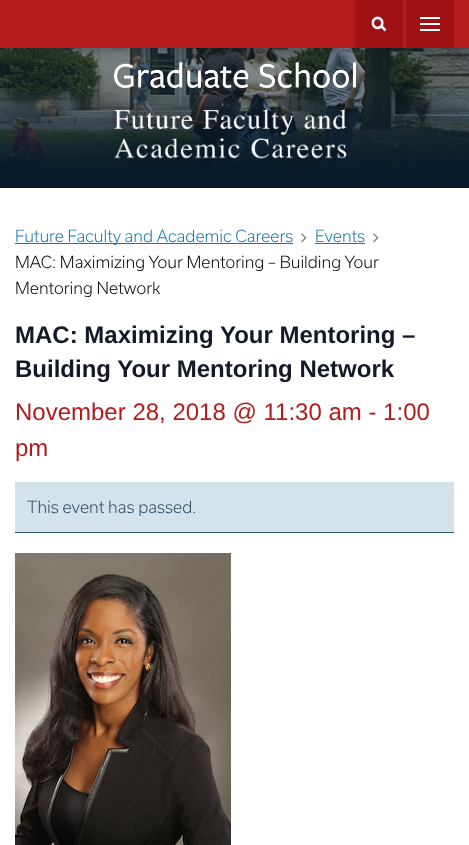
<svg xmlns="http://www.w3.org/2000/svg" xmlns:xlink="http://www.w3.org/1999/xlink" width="469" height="845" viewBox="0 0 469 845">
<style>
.cls-1{font:300 16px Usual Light;fill:#1177ae}
.cls-2{font:300 16px Usual Light;fill:#000000}
.cls-3{font:bold 24px Liberation Sans;fill:#141827}
.cls-4{font:24px Liberation Sans;fill:#b31b1b}
.cls-5{font:300 16px Usual Light;fill:#2b4c63}
</style>
<rect width="100%" height="100%" fill="#ffffff"/>
<image xlink:href="image0.png" x="0" y="48" width="469" height="140"/>
<rect fill="#b31b1b" x="0" y="0" width="469" height="48"/>
<rect fill="#a01114" x="355" y="0" width="48" height="48"/>
<image xlink:href="image1.png" x="371" y="16" width="16" height="16"/>
<rect fill="#a01114" x="406" y="0" width="48" height="48"/>
<image xlink:href="image2.png" x="420" y="17" width="20" height="14"/>
<image xlink:href="image3.png" x="114" y="62" width="242" height="26"/>
<image xlink:href="image4.png" x="112" y="107" width="236" height="54"/>
<rect fill="#1177ae" x="15" y="243" width="278" height="1"/>
<image xlink:href="image5.png" x="301" y="233" width="6" height="10"/>
<rect fill="#1177ae" x="315" y="243" width="50" height="1"/>
<image xlink:href="image5.png" x="373" y="233" width="6" height="10"/>
<rect fill="#d4e2ec" x="15" y="482" width="439" height="50"/>
<rect fill="#335a75" x="15" y="532" width="439" height="1"/>
<image xlink:href="image6.png" x="15" y="553" width="216" height="292"/>
<text class="cls-1" x="15" y="242">Future Faculty and Academic Careers</text>
<text class="cls-1" x="315" y="242">Events</text>
<text class="cls-2"><tspan x="15" y="268">MAC: Maximizing Your Mentoring – Building Your</tspan><tspan x="15" y="294">Mentoring Network</tspan></text>
<text class="cls-3"><tspan x="15" y="343">MAC: Maximizing Your Mentoring –</tspan><tspan x="15" y="377">Building Your Mentoring Network</tspan></text>
<text class="cls-4"><tspan x="15" y="420">November 28, 2018 @ 11:30 am - 1:00</tspan><tspan x="15" y="456">pm</tspan></text>
<text class="cls-5" x="27" y="513">This event has passed.</text>
</svg>
